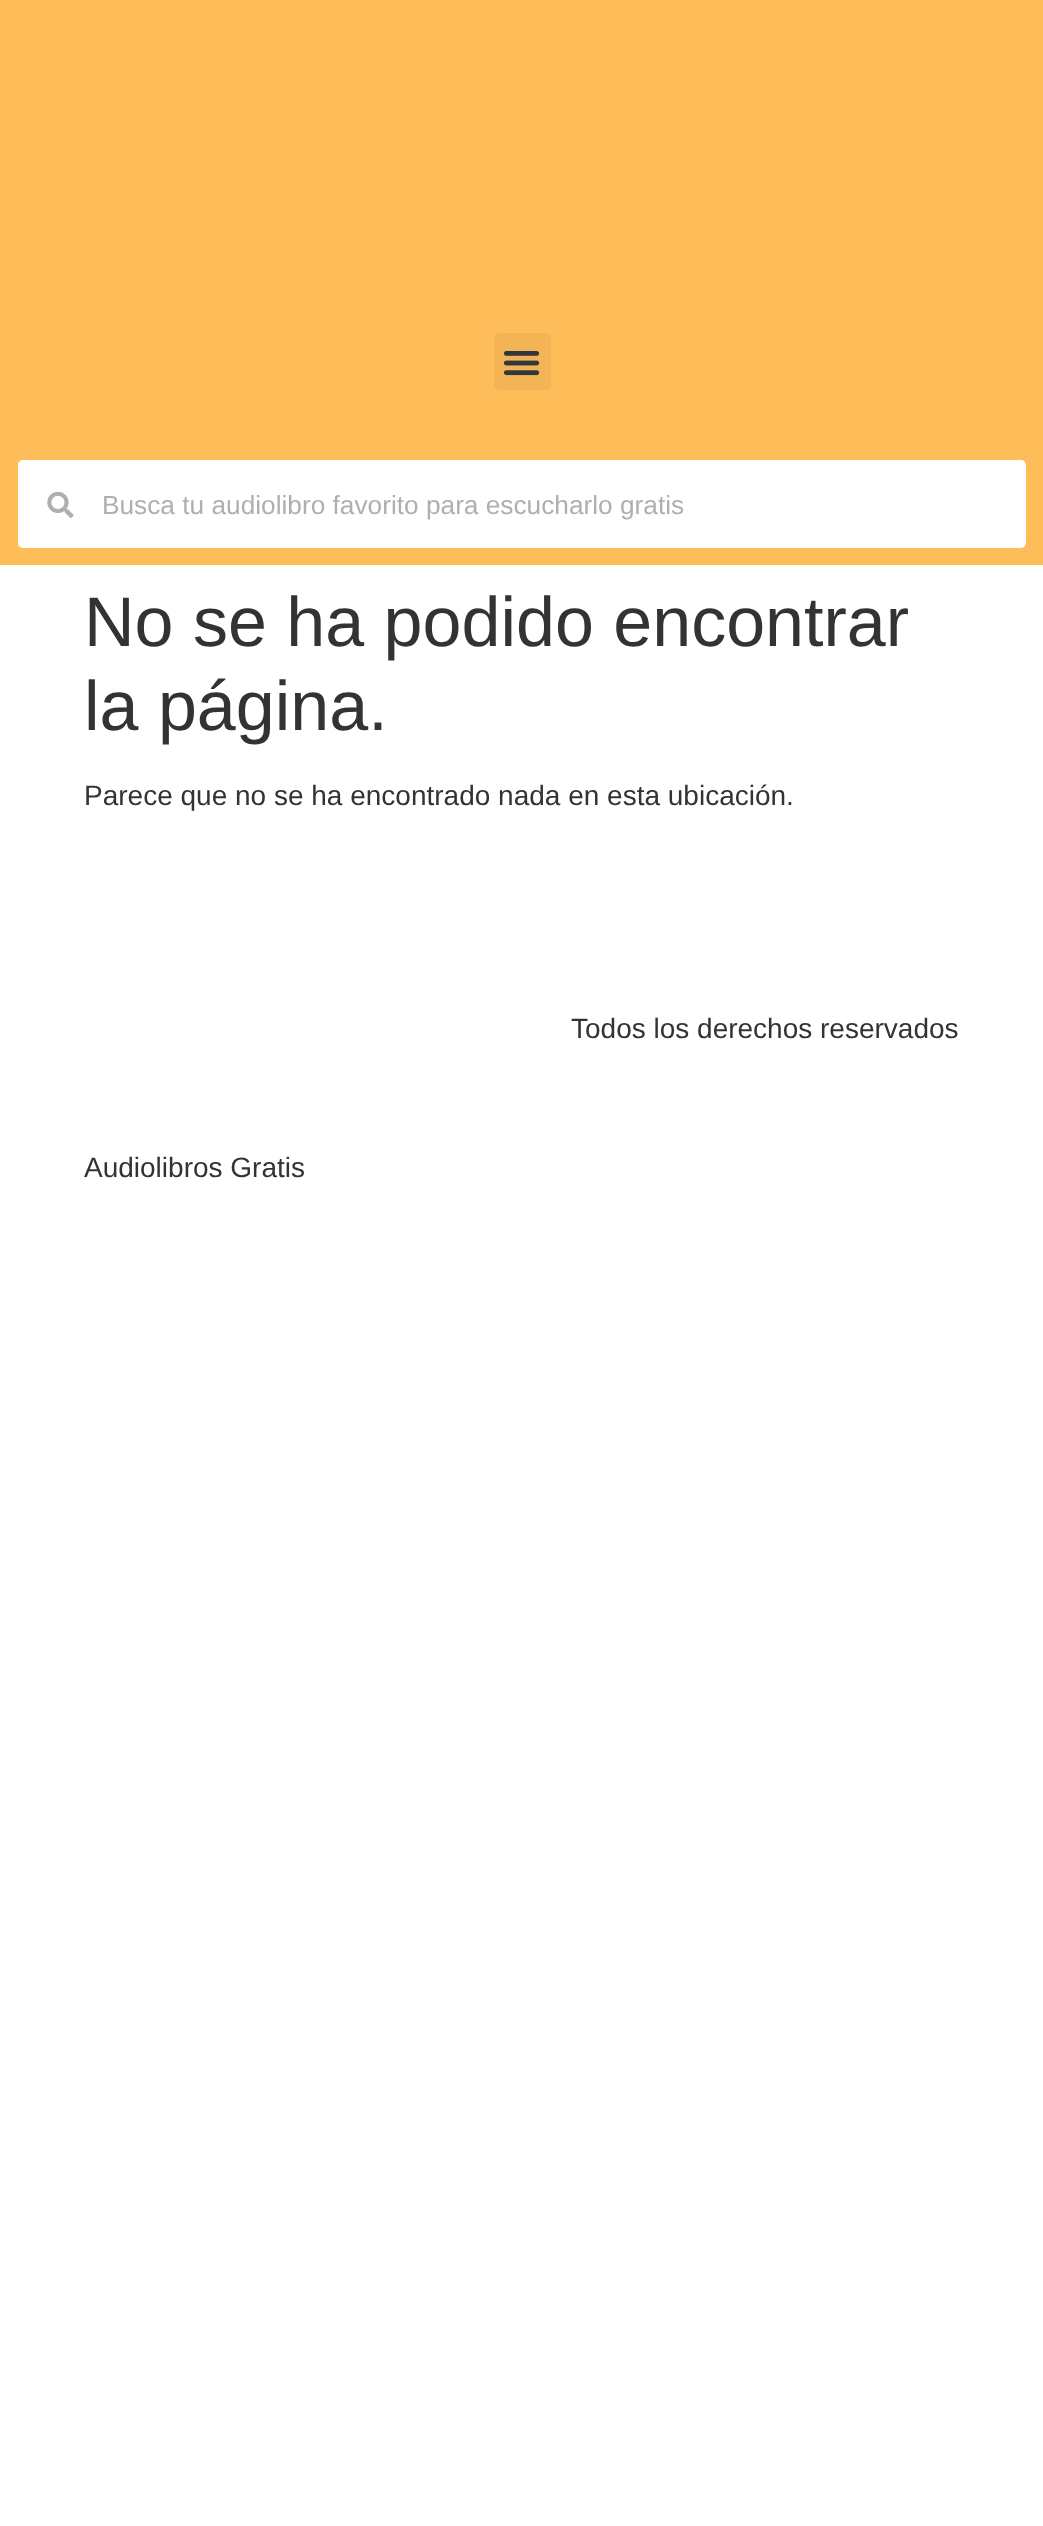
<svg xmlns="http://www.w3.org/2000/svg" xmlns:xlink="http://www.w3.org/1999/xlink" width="1043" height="2526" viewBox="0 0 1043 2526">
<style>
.cls-1{font:26.25px Liberation Sans;fill:#afafaf}
.cls-2{font:70px Liberation Sans;fill:#333333}
.cls-3{font:28px Liberation Sans;fill:#333333}
</style>
<rect width="100%" height="100%" fill="#ffffff"/>
<rect fill="#ffbd59" x="0" y="0" width="1043" height="565"/>
<rect fill="#f2b455" x="494" y="333" width="57" height="57" rx="5"/>
<image xlink:href="image0.png" x="503" y="351" width="37" height="25"/>
<rect fill="#ffffff" x="18" y="460" width="1008" height="88" rx="5"/>
<image xlink:href="image1.png" x="47" y="492" width="27" height="26"/>
<text class="cls-1" x="102" y="514">Busca tu audiolibro favorito para escucharlo gratis</text>
<text class="cls-2"><tspan x="84" y="646">No se ha podido encontrar</tspan><tspan x="84" y="730">la página.</tspan></text>
<text class="cls-3" x="84" y="805">Parece que no se ha encontrado nada en esta ubicación.</text>
<text class="cls-3" x="571" y="1038">Todos los derechos reservados</text>
<text class="cls-3" x="84" y="1177">Audiolibros Gratis</text>
</svg>
